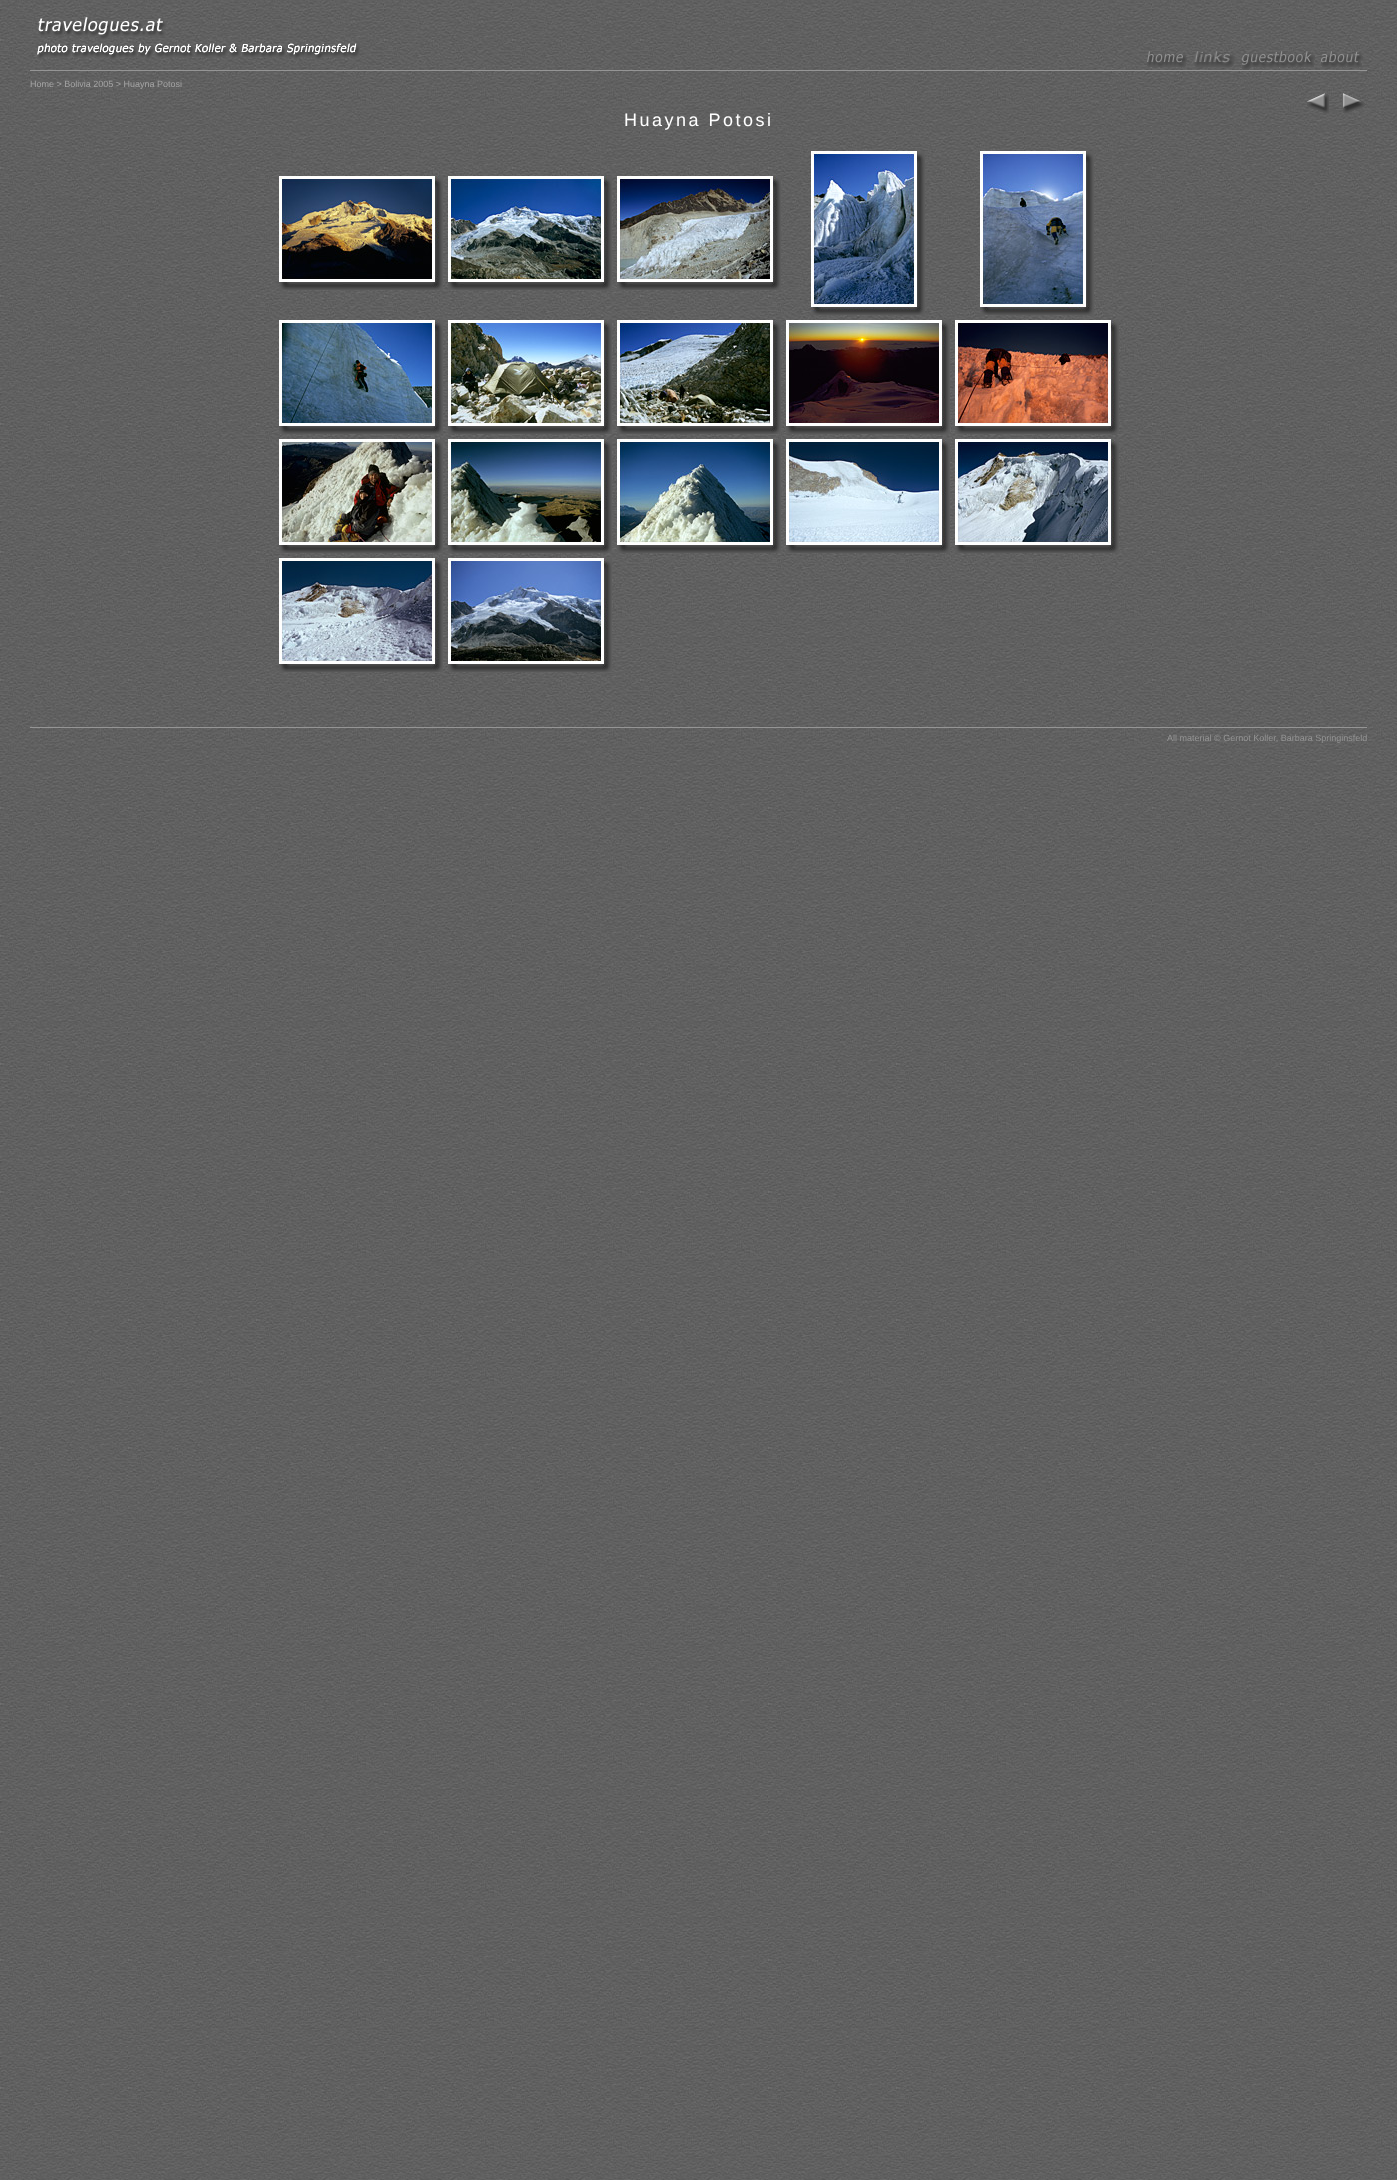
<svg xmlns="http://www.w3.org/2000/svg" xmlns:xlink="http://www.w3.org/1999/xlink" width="1397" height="2180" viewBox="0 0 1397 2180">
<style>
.cls-1{font:9px Liberation Sans;fill:#a5a5a5}
.cls-2{font:18px Liberation Sans;letter-spacing:2.5px;fill:#ffffff}
.cls-3{font:9px Liberation Sans;fill:#959595}
</style>
<rect width="100%" height="100%" fill="#ffffff"/>
<image xlink:href="image0.png" x="0" y="0" width="1397" height="2180"/>
<image xlink:href="image1.png" x="37" y="17" width="323" height="43"/>
<rect fill="#959595" x="30" y="70" width="1337" height="1"/>
<image xlink:href="image2.png" x="1147" y="51" width="40" height="17"/>
<image xlink:href="image3.png" x="1194" y="51" width="41" height="16"/>
<image xlink:href="image4.png" x="1242" y="51" width="73" height="19"/>
<image xlink:href="image5.png" x="1321" y="51" width="42" height="17"/>
<image xlink:href="image6.png" x="1306" y="93" width="23" height="20"/>
<image xlink:href="image7.png" x="1342" y="93" width="23" height="20"/>
<image xlink:href="image8.png" x="279" y="176" width="164" height="114"/>
<image xlink:href="image9.png" x="448" y="176" width="164" height="114"/>
<image xlink:href="image10.png" x="617" y="176" width="164" height="114"/>
<image xlink:href="image11.png" x="811" y="151" width="114" height="164"/>
<image xlink:href="image12.png" x="980" y="151" width="114" height="164"/>
<image xlink:href="image13.png" x="279" y="320" width="164" height="114"/>
<image xlink:href="image14.png" x="448" y="320" width="164" height="114"/>
<image xlink:href="image15.png" x="617" y="320" width="164" height="114"/>
<image xlink:href="image16.png" x="786" y="320" width="164" height="114"/>
<image xlink:href="image17.png" x="955" y="320" width="164" height="114"/>
<image xlink:href="image18.png" x="279" y="439" width="164" height="114"/>
<image xlink:href="image19.png" x="448" y="439" width="164" height="114"/>
<image xlink:href="image20.png" x="617" y="439" width="164" height="114"/>
<image xlink:href="image21.png" x="786" y="439" width="164" height="114"/>
<image xlink:href="image22.png" x="955" y="439" width="164" height="114"/>
<image xlink:href="image23.png" x="279" y="558" width="164" height="114"/>
<image xlink:href="image24.png" x="448" y="558" width="164" height="114"/>
<rect fill="#959595" x="30" y="727" width="1337" height="1"/>
<text class="cls-1" x="30" y="87">Home &gt; Bolivia 2005 &gt; Huayna Potosi</text>
<text class="cls-2" x="624" y="126">Huayna Potosi</text>
<text class="cls-3" x="1167" y="741">All material © Gernot Koller, Barbara Springinsfeld</text>
</svg>
